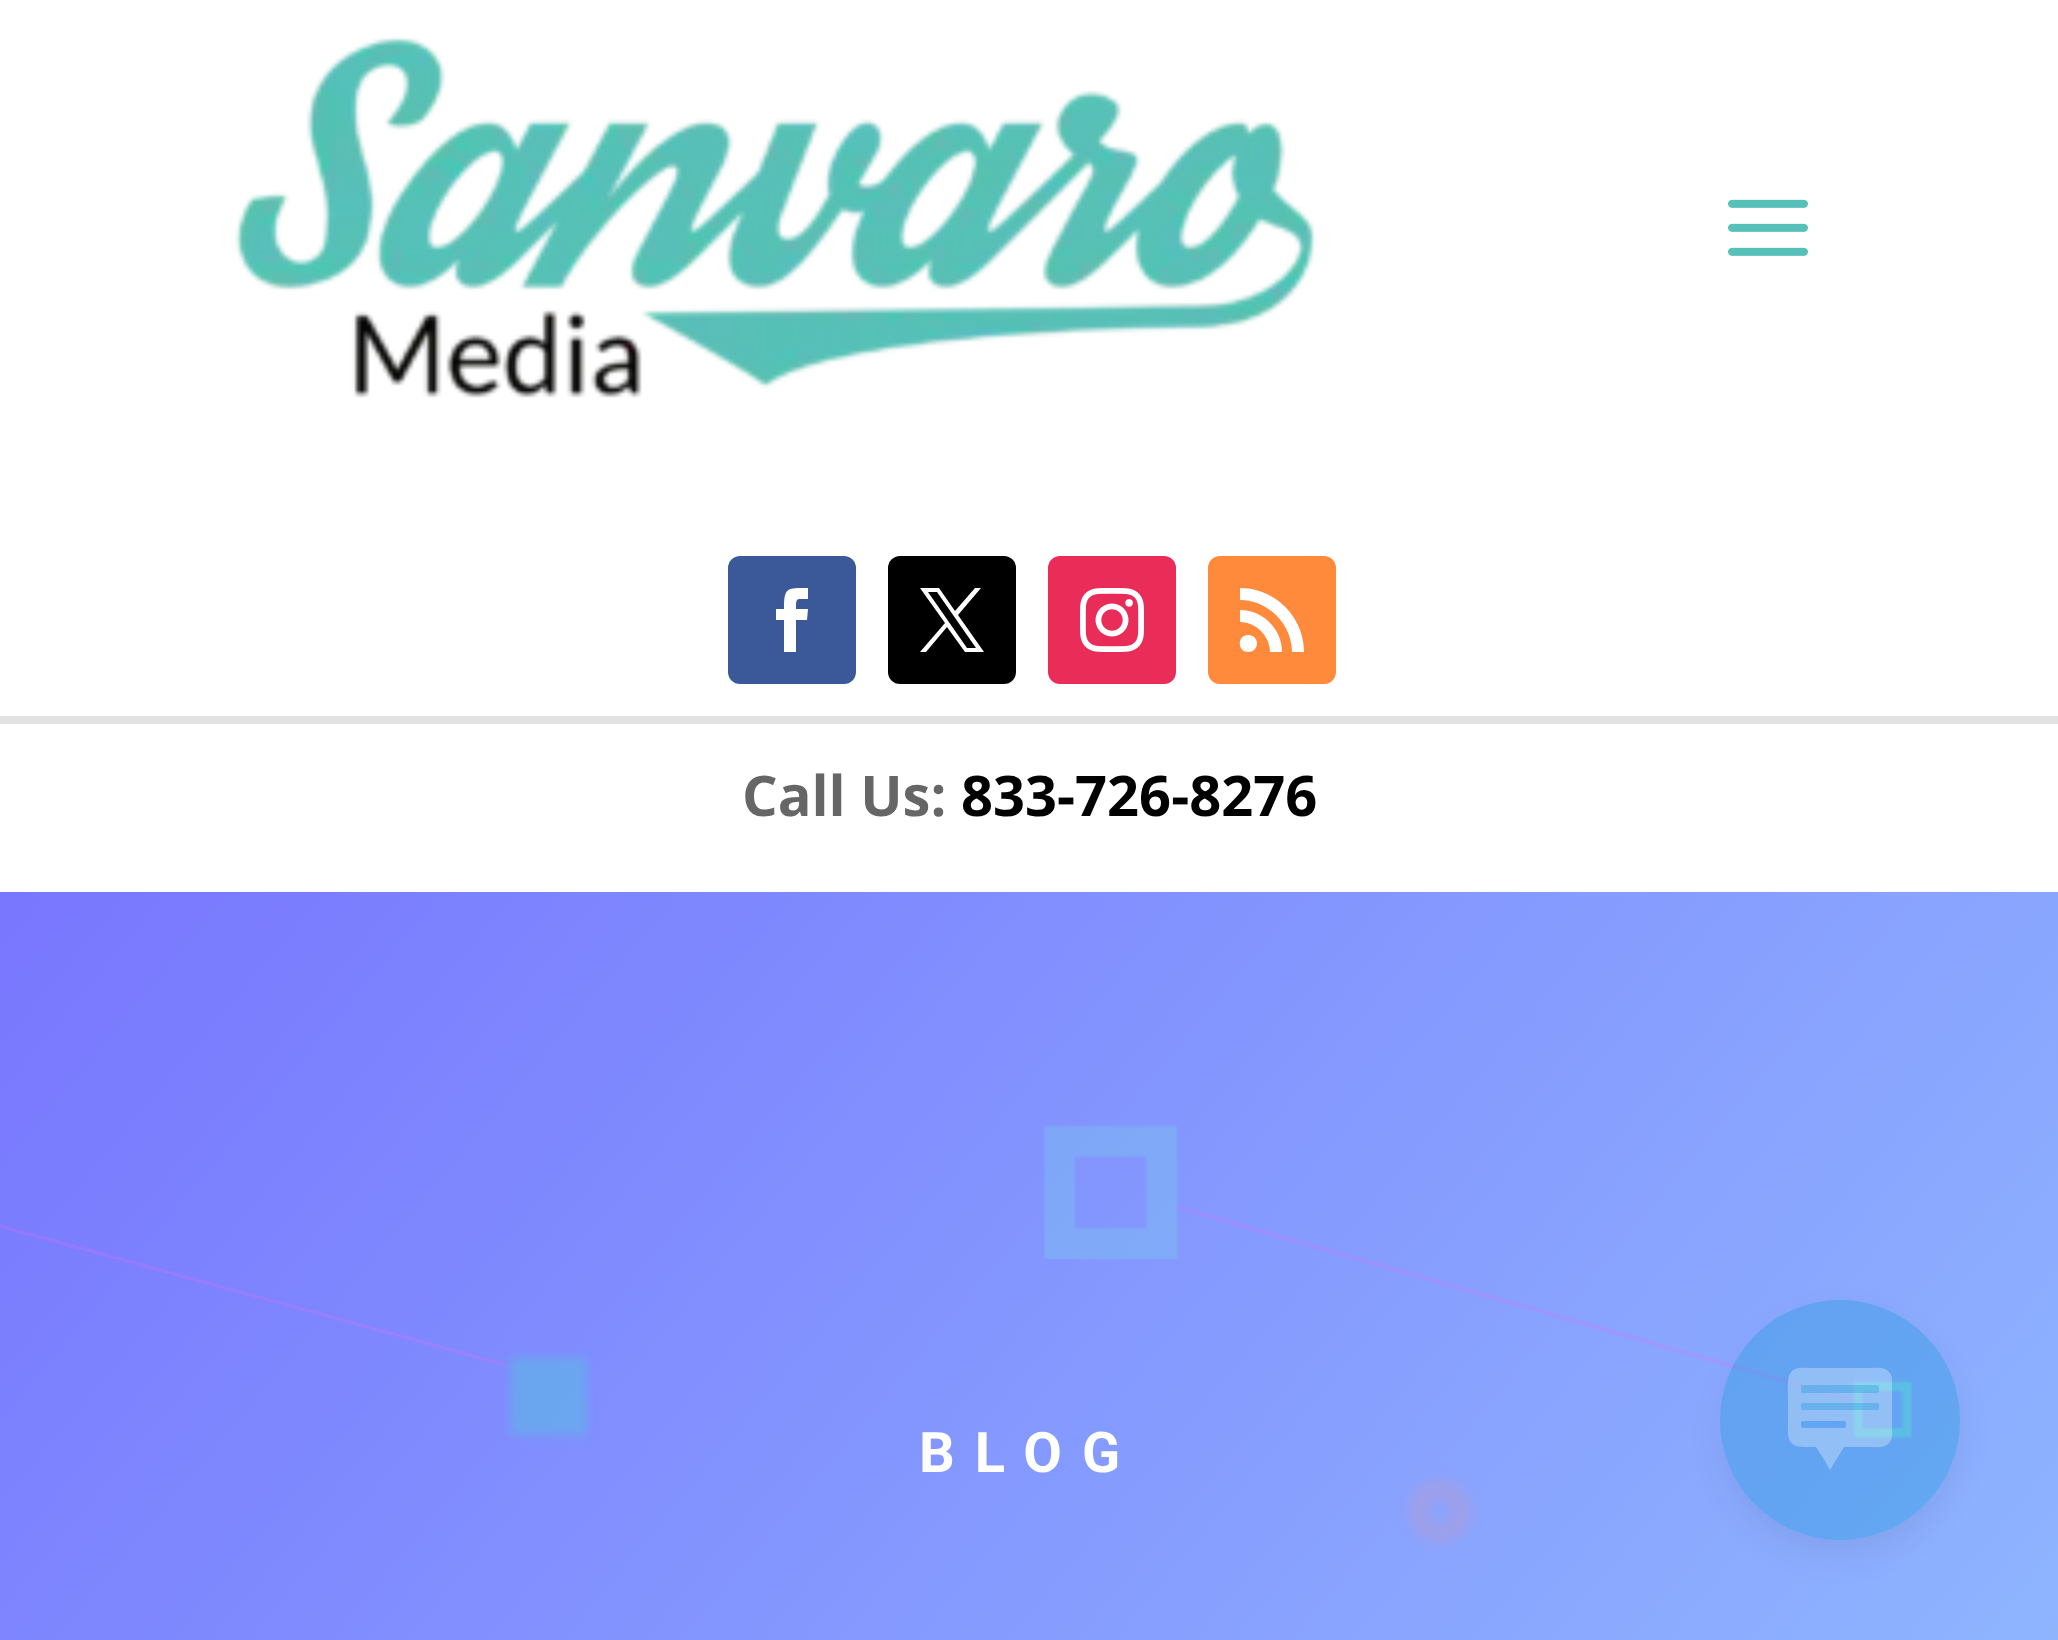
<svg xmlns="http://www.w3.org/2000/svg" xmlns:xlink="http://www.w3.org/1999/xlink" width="2058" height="1640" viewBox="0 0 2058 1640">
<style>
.cls-1{font:bold 56px Open Sans;fill:#666666}
.cls-2{font:bold 56px Open Sans;fill:#000000}
.cls-3{font:bold 56px Roboto;letter-spacing:20px;fill:#ffffff}
</style>
<defs>
<linearGradient id="g1" gradientUnits="userSpaceOnUse" x1="-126" y1="1026" x2="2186" y2="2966"><stop offset="0" stop-color="#7876fe"/><stop offset="1" stop-color="#99d1ff"/></linearGradient>
<clipPath id="clip1"><path d="M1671 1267H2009V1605H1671ZM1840 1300C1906.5 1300 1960 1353.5 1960 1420C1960 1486.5 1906.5 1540 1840 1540C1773.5 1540 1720 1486.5 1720 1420C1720 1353.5 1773.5 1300 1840 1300Z" clip-rule="evenodd"/></clipPath>
</defs>
<rect width="100%" height="100%" fill="#ffffff"/>
<image xlink:href="image0.png" x="235" y="36" width="1082" height="362"/>
<image xlink:href="image1.png" x="1728" y="199" width="80" height="57"/>
<rect fill="#3b5998" x="728" y="556" width="128" height="128" rx="12"/>
<path fill="#ffffff" d="M784 652H796V620H807L808 609H796C796 597 796 599 808 599V588C787 588 784 587 784 609H776V620H784Z"/>
<rect fill="#000000" x="888" y="556" width="128" height="128" rx="12"/>
<path fill="#ffffff" d="M920 588L945 623L920 652H926L947 627L965 652H984L958 615L981 588H975L955 611L939 588ZM928 592H937L976 648H967Z"/>
<rect fill="#ea2c59" x="1048" y="556" width="128" height="128" rx="12"/>
<image xlink:href="image2.png" x="1080" y="588" width="64" height="64"/>
<rect fill="#ff8a3c" x="1208" y="556" width="128" height="128" rx="12"/>
<path fill="#ffffff" d="M1240 588V600C1268 600 1292 624 1292 652H1304C1304 617 1275 588 1240 588ZM1270 652H1282C1282 629 1263 610 1240 610V622C1256 622 1270 636 1270 652ZM1248 652C1260 652 1260 635 1248 635C1237 635 1237 652 1248 652Z"/>
<rect fill="#e2e2e2" x="0" y="716" width="2058" height="8"/>
<rect fill="url(#g1)" x="0" y="892" width="2058" height="748"/>
<image xlink:href="image3.png" x="0" y="1125" width="1912" height="424"/>
<g clip-path="url(#clip1)">
<rect fill="#000000" fill-opacity="0.06" filter="blur(16px)" x="1720" y="1316" width="240" height="240" rx="120"/>
</g>
<circle fill="#0596d4" fill-opacity="0.3" cx="1840" cy="1420" r="120"/>
<path fill="#ffffff" fill-opacity="0.3" d="M1825 1461L1816 1447H1811C1803 1447 1792 1448 1789 1439C1787 1434 1788 1429 1788 1424V1399C1788 1392 1787 1382 1789 1376C1792 1365 1806 1368 1814 1368H1866C1875 1368 1890 1365 1892 1378V1426C1892 1430 1893 1436 1891 1440C1887 1449 1876 1447 1868 1447H1844L1830 1470Z"/>
<rect fill="#0596d4" fill-opacity="0.3" x="1801" y="1385" width="78" height="8" rx="2"/>
<rect fill="#0596d4" fill-opacity="0.3" x="1801" y="1403" width="78" height="7" rx="2"/>
<rect fill="#63a5f2" x="1801" y="1421" width="45" height="7" rx="2"/>
<text class="cls-1" x="742" y="816">Call Us:</text>
<text class="cls-2" x="961" y="816">833-726-8276</text>
<text class="cls-3" x="919" y="1472">BLOG</text>
</svg>
